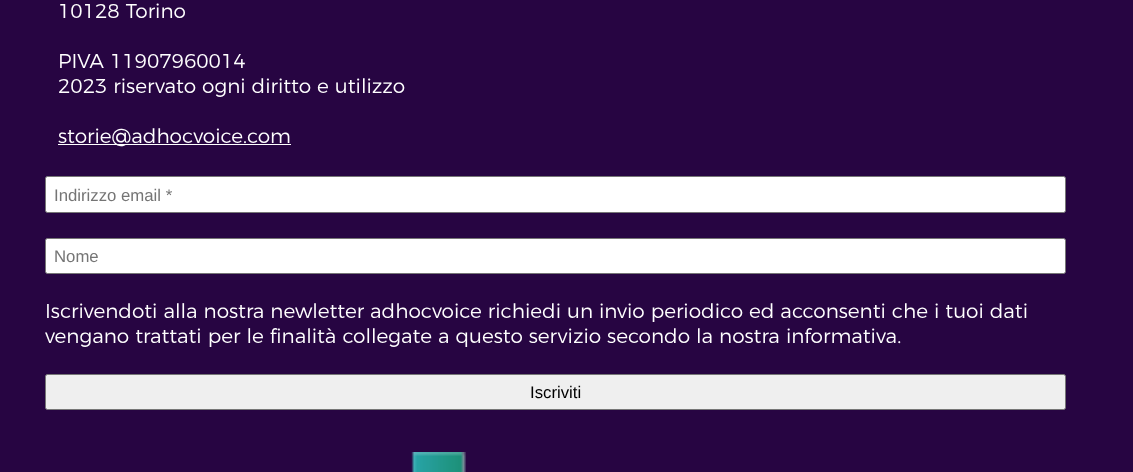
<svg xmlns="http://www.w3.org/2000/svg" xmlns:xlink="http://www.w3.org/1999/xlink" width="1133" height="472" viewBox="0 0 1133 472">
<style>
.cls-1{font:300 20px Montserrat;fill:#ffffff}
.cls-2{font:16.75px Liberation Sans;fill:#757575}
.cls-3{font:16.75px Liberation Sans;fill:#000000}
</style>
<rect width="100%" height="100%" fill="#270542"/>
<rect fill="#ffffff" x="58" y="144" width="233" height="1"/>
<rect fill="#ffffff" stroke="#767676" x="45.5" y="176.5" width="1020" height="36" rx="2"/>
<rect fill="#ffffff" stroke="#767676" x="45.5" y="238.5" width="1020" height="35" rx="2"/>
<rect fill="#efefef" stroke="#767676" x="45.5" y="374.5" width="1020" height="35" rx="2"/>
<image xlink:href="image0.png" x="411" y="452" width="55" height="20"/>
<text class="cls-1" x="58" y="18">10128 Torino</text>
<text class="cls-1"><tspan x="58" y="68">PIVA 11907960014</tspan><tspan x="58" y="93">2023 riservato ogni diritto e utilizzo</tspan></text>
<text class="cls-1" x="58" y="143">storie@adhocvoice.com</text>
<text class="cls-2" x="54" y="201">Indirizzo email *</text>
<text class="cls-2" x="54" y="262">Nome</text>
<text class="cls-1"><tspan x="45" y="318">Iscrivendoti alla nostra newletter adhocvoice richiedi un invio periodico ed acconsenti che i tuoi dati</tspan><tspan x="45" y="343">vengano trattati per le finalità collegate a questo servizio secondo la nostra informativa.</tspan></text>
<text class="cls-3" x="530" y="398">Iscriviti</text>
</svg>
